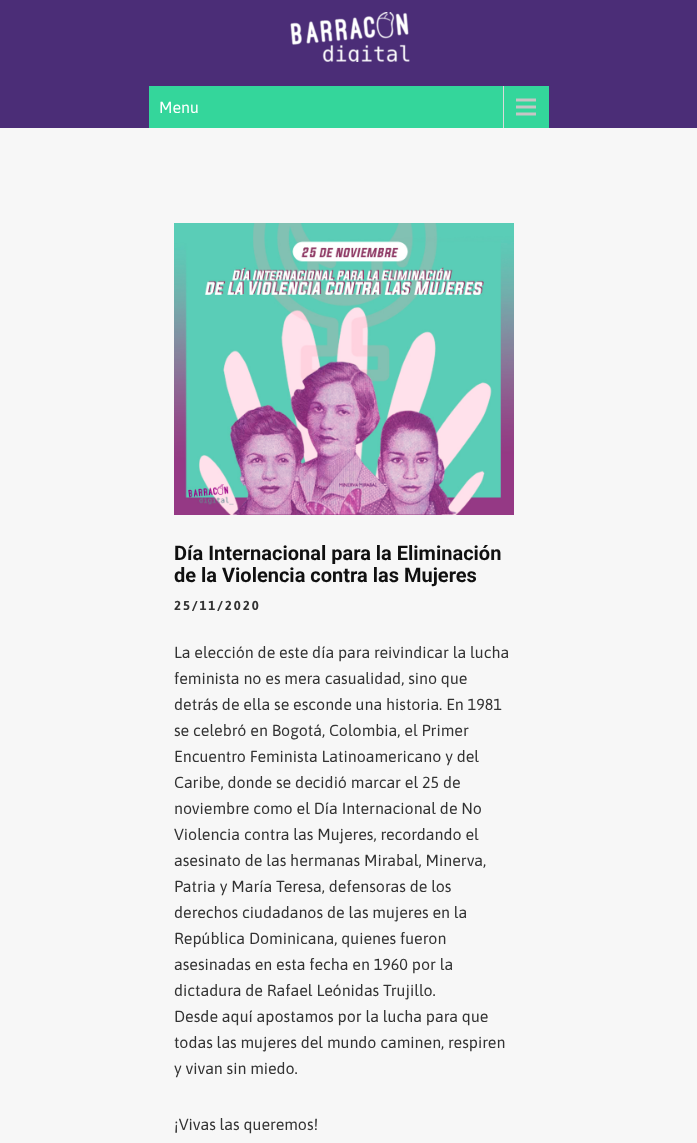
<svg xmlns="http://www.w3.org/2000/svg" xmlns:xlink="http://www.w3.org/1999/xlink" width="697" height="1143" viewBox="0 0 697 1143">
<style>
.cls-1{font:16px Asap;fill:#ffffff}
.cls-2{font:bold 20px Roboto;fill:#101010}
.cls-3{font:bold 13px Asap;letter-spacing:2px;fill:#333333}
.cls-4{font:16px Asap;fill:#333333}
</style>
<rect width="100%" height="100%" fill="#f7f7f7"/>
<rect fill="#4b2d77" x="0" y="0" width="697" height="128"/>
<image xlink:href="image0.png" x="290" y="12" width="120" height="50"/>
<rect fill="#34d69b" x="149" y="86" width="400" height="42"/>
<image xlink:href="image1.png" x="503" y="86" width="33" height="42"/>
<image xlink:href="image2.png" x="174" y="223" width="340" height="292"/>
<text class="cls-1" x="159" y="113">Menu</text>
<text class="cls-2"><tspan x="174" y="560">Día Internacional para la Eliminación</tspan><tspan x="174" y="582">de la Violencia contra las Mujeres</tspan></text>
<text class="cls-3" x="174" y="610">25/11/2020</text>
<text class="cls-4"><tspan x="174" y="658">La elección de este día para reivindicar la lucha</tspan><tspan x="174" y="684">feminista no es mera casualidad, sino que</tspan><tspan x="174" y="710">detrás de ella se esconde una historia. En 1981</tspan><tspan x="174" y="736">se celebró en Bogotá, Colombia, el Primer</tspan><tspan x="174" y="762">Encuentro Feminista Latinoamericano y del</tspan><tspan x="174" y="788">Caribe, donde se decidió marcar el 25 de</tspan><tspan x="174" y="814">noviembre como el Día Internacional de No</tspan><tspan x="174" y="840">Violencia contra las Mujeres, recordando el</tspan><tspan x="174" y="866">asesinato de las hermanas Mirabal, Minerva,</tspan><tspan x="174" y="892">Patria y María Teresa, defensoras de los</tspan><tspan x="174" y="918">derechos ciudadanos de las mujeres en la</tspan><tspan x="174" y="944">República Dominicana, quienes fueron</tspan><tspan x="174" y="970">asesinadas en esta fecha en 1960 por la</tspan><tspan x="174" y="996">dictadura de Rafael Leónidas Trujillo.</tspan><tspan x="174" y="1022">Desde aquí apostamos por la lucha para que</tspan><tspan x="174" y="1048">todas las mujeres del mundo caminen, respiren</tspan><tspan x="174" y="1074">y vivan sin miedo.</tspan></text>
<text class="cls-4" x="174" y="1130">¡Vivas las queremos!</text>
</svg>
